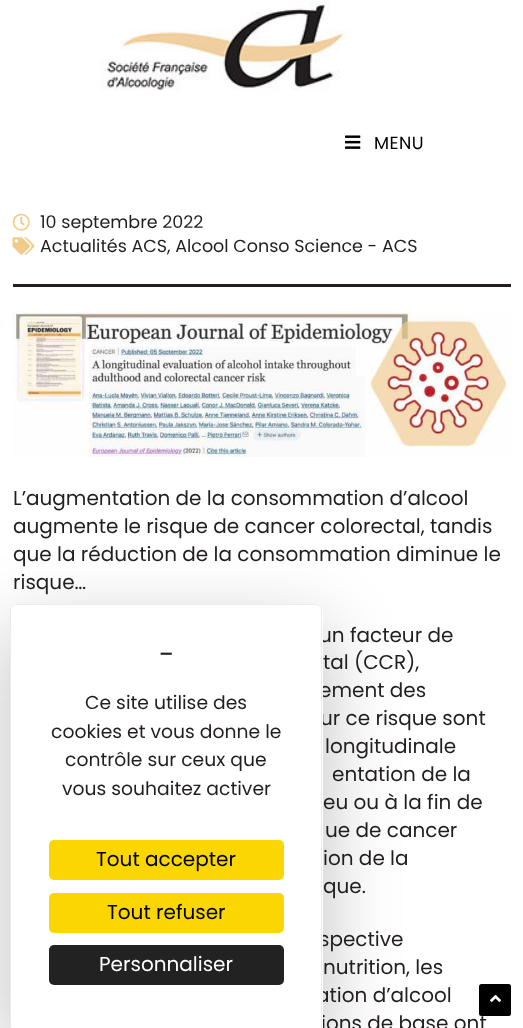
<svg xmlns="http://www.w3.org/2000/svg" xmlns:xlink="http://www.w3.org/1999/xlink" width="523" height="1028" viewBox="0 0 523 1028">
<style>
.cls-1{font:17.5px Poppins;letter-spacing:0.5px;fill:#000000}
.cls-2{font:17.5px Poppins;fill:#231f20}
.cls-3{font:20px Poppins;fill:#231f20}
.cls-4{font:28px Poppins;fill:#231f20}
.cls-5{font:18.75px Poppins;fill:#231f20}
.cls-6{font:20px Poppins;fill:#000000}
.cls-7{font:20px Poppins;fill:#ffffff}
</style>
<rect width="100%" height="100%" fill="#ffffff"/>
<image xlink:href="image0.png" x="100" y="0" width="250" height="91"/>
<image xlink:href="image1.png" x="345" y="135" width="16" height="14"/>
<image xlink:href="image2.png" x="12" y="213" width="18" height="18"/>
<image xlink:href="image3.png" x="12" y="237" width="23" height="18"/>
<rect fill="#231f20" x="13" y="284" width="498" height="3"/>
<image xlink:href="image4.png" x="12" y="311" width="499" height="146"/>
<rect fill="#000000" fill-opacity="0.25" filter="blur(37.5px)" x="10" y="629" width="313" height="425" rx="6"/>
<text class="cls-1" x="374" y="149">MENU</text>
<text class="cls-2"><tspan x="40" y="228">10 septembre 2022</tspan><tspan x="40" y="252">Actualités ACS, Alcool Conso Science - ACS</tspan></text>
<text class="cls-3"><tspan x="13" y="505">L’augmentation de la consommation d’alcool</tspan><tspan x="13" y="533">augmente le risque de cancer colorectal, tandis</tspan><tspan x="13" y="561">que la réduction de la consommation diminue le</tspan><tspan x="13" y="589">risque…</tspan></text>
<text class="cls-3" x="319" y="642">un facteur de</text>
<text class="cls-3" x="323" y="669">tal (CCR),</text>
<text class="cls-3" x="319" y="697">ement des</text>
<text class="cls-3" x="320" y="725">ur ce risque sont</text>
<text class="cls-3" x="325" y="753">longitudinale</text>
<text class="cls-3" x="332" y="781">entation de la</text>
<text class="cls-3" x="323" y="809">eu ou à la fin de</text>
<text class="cls-3" x="325" y="837">ue de cancer</text>
<text class="cls-3"><tspan x="323" y="865">ion de la</tspan><tspan x="323" y="893">que.</tspan></text>
<text class="cls-3" x="319" y="946">spective</text>
<text class="cls-3" x="323" y="974">nutrition, les</text>
<text class="cls-3" x="316" y="1002">ation d’alcool</text>
<text class="cls-3" x="321" y="1030">ions de base ont</text>
<path fill="#ffffff" d="M16 604H317C320.5 604 323 606.5 323 610V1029H10V610C10 606.5 12.5 604 16 604Z"/>
<path fill="#ebebeb" fill-rule="evenodd" d="M16 604H316C320 604 322 607 322 610V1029H10V610C10 607 13 604 16 604ZM16 605H316C319 605 321 607 321 610V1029H11V610C11 607 13 605 16 605Z"/>
<text class="cls-4" x="159" y="664">-</text>
<text class="cls-5" x="85" y="709">Ce site utilise des</text>
<text class="cls-5" x="51" y="738">cookies et vous donne le</text>
<text class="cls-5" x="65" y="766">contrôle sur ceux que</text>
<text class="cls-5" x="62" y="795">vous souhaitez activer</text>
<rect fill="#fbd600" x="49" y="840" width="235" height="40" rx="5"/>
<text class="cls-6" x="96" y="866">Tout accepter</text>
<rect fill="#fbd600" x="49" y="893" width="235" height="40" rx="5"/>
<text class="cls-6" x="107" y="919">Tout refuser</text>
<rect fill="#222222" x="49" y="945" width="235" height="40" rx="5"/>
<text class="cls-7" x="99" y="971">Personnaliser</text>
<rect fill="#000000" x="479" y="984" width="32" height="32" rx="2.5"/>
<image xlink:href="image5.png" x="490" y="995" width="11" height="7"/>
</svg>
